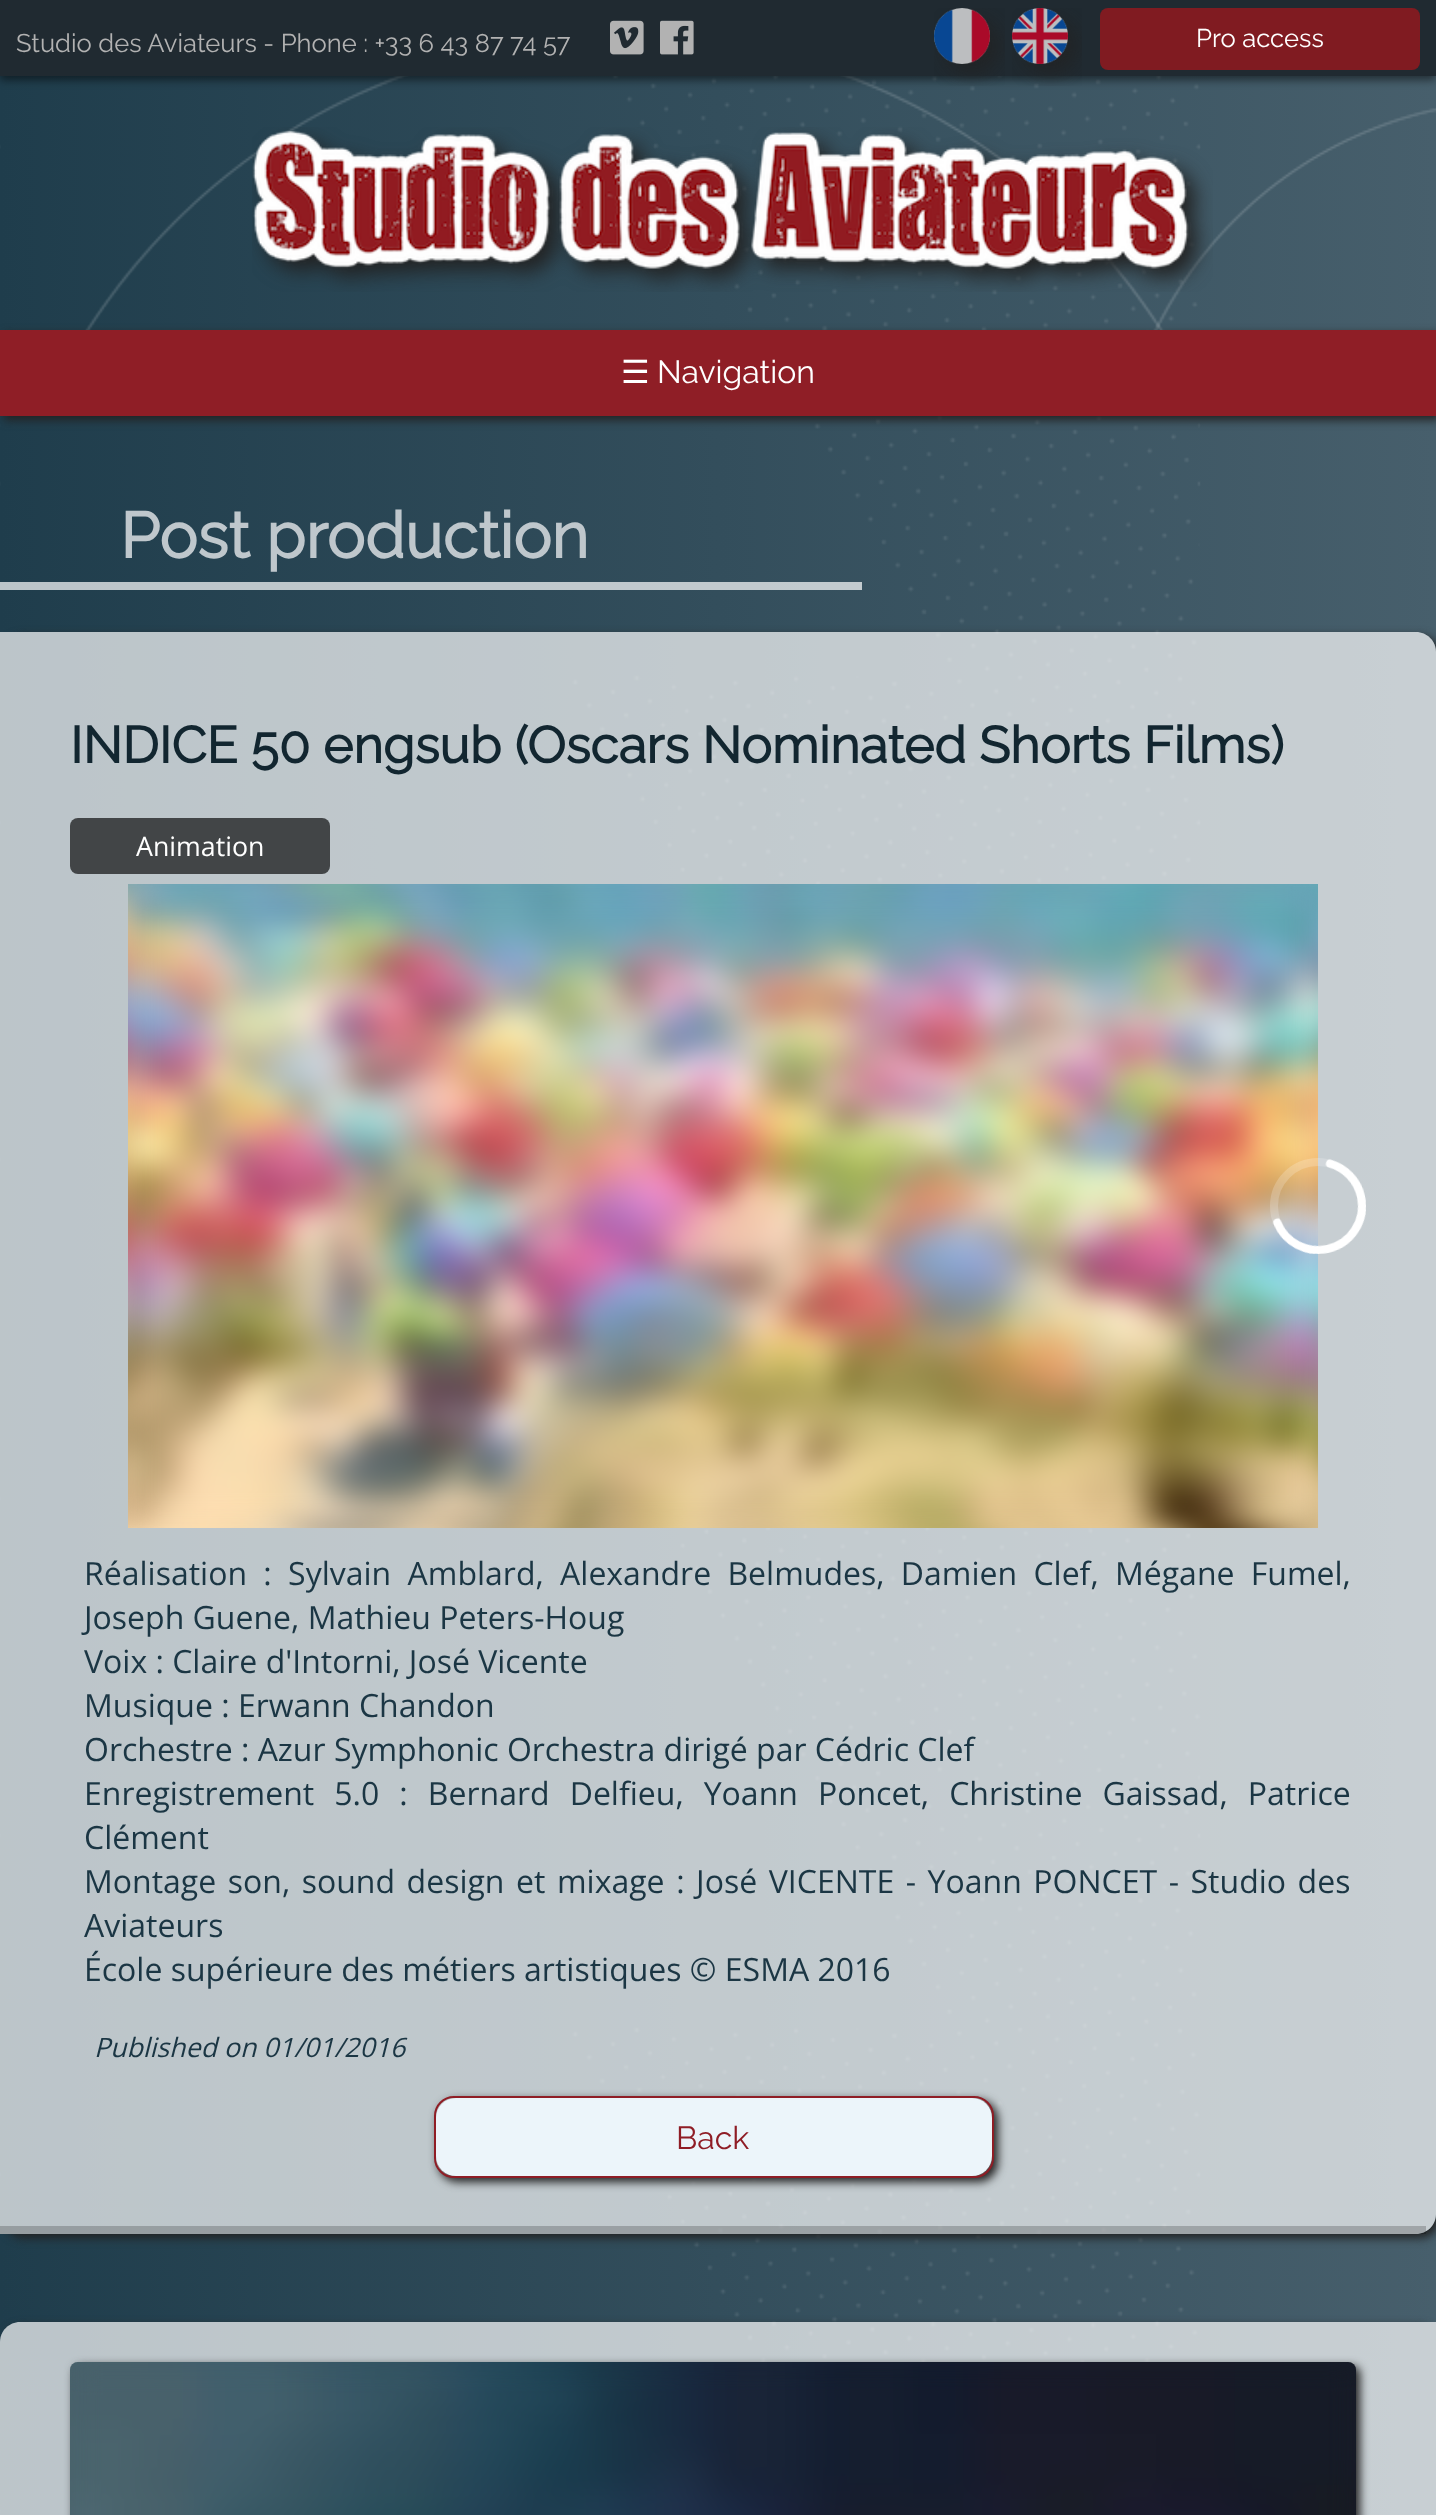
<svg xmlns="http://www.w3.org/2000/svg" xmlns:xlink="http://www.w3.org/1999/xlink" width="1436" height="2515" viewBox="0 0 1436 2515">
<style>
.cls-1{font:100 25.6px Raleway;fill:#b2b2b2}
.cls-2{font:100 25.6px Raleway;fill:#ffffff}
.cls-3{font:32px DejaVu Sans;fill:#ffffff}
.cls-4{font:100 32px Raleway;fill:#ffffff}
.cls-5{font:bold 64px Raleway;fill:#bfc7cc}
.cls-6{font:bold 51.2px Raleway;fill:#122630}
.cls-7{font:26.75px Open Sans;fill:#ffffff}
.cls-8{font:32px Open Sans;fill:#1b3644}
.cls-9{font:italic 26.75px Open Sans;fill:#1b3644}
.cls-10{font:100 32px Raleway;fill:#8f1d25}
</style>
<defs>
<clipPath id="clip1"><path d="M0 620H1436V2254H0ZM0 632H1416C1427 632 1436 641 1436 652V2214C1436 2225 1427 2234 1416 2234H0Z" clip-rule="evenodd"/></clipPath>
<clipPath id="clip2"><path d="M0 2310H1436V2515H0ZM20 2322H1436V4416H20C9 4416 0 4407 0 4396V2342C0 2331 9 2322 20 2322Z" clip-rule="evenodd"/></clipPath>
</defs>
<rect width="100%" height="100%" fill="#ffffff"/>
<image xlink:href="image0.png" x="0" y="76" width="1436" height="2439"/>
<image xlink:href="image1.png" x="85" y="76" width="1351" height="254"/>
<rect fill="#000000" fill-opacity="0.5" filter="blur(4px)" x="0" y="4" width="1436" height="76"/>
<rect fill="#202a31" x="0" y="0" width="1436" height="76"/>
<image xlink:href="image2.png" x="610" y="20" width="34" height="35"/>
<image xlink:href="image3.png" x="660" y="20" width="34" height="35"/>
<image xlink:href="image4.png" x="934" y="8" width="71" height="78"/>
<image xlink:href="image5.png" x="1012" y="8" width="70" height="78"/>
<rect fill="#801b21" x="1100" y="8" width="320" height="62" rx="8"/>
<image xlink:href="image6.png" x="252" y="127" width="961" height="165"/>
<rect fill="#222222" filter="blur(5px)" x="4" y="334" width="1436" height="86"/>
<rect fill="#8f1e26" x="0" y="330" width="1436" height="86"/>
<rect fill="#ffffff" fill-opacity="0.7" x="0" y="582" width="862" height="8"/>
<g clip-path="url(#clip1)">
<rect fill="#222222" filter="blur(5px)" x="4" y="636" width="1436" height="1602" rx="20"/>
</g>
<path fill="#ffffff" fill-opacity="0.7" d="M0 632H1416C1427 632 1436 641 1436 652V2214C1436 2225 1427 2234 1416 2234H0Z"/>
<rect fill="#000000" fill-opacity="0.2" x="0" y="2226" width="1426" height="8"/>
<rect fill="#424547" x="70" y="818" width="260" height="56" rx="8"/>
<image xlink:href="image7.png" x="128" y="884" width="1238" height="644"/>
<rect fill="#222222" filter="blur(5px)" x="438" y="2100" width="560" height="82" rx="20"/>
<rect fill="#ffffff" fill-opacity="0.2" stroke="#8f1d25" stroke-width="2" x="435" y="2097" width="558" height="80" rx="19"/>
<rect fill="#ecf5fa" x="436" y="2098" width="556" height="78" rx="20"/>
<g clip-path="url(#clip2)">
<rect fill="#222222" filter="blur(5px)" x="4" y="2326" width="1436" height="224" rx="20"/>
</g>
<path fill="#ffffff" fill-opacity="0.7" d="M20 2322H1436V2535H20C9 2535 0 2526 0 2515V2342C0 2331 9 2322 20 2322Z"/>
<rect fill="#222222" filter="blur(5px)" x="74" y="2366" width="1286" height="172" rx="8"/>
<image xlink:href="image8.png" x="70" y="2362" width="1286" height="153"/>
<text class="cls-1" x="16" y="52">Studio des Aviateurs - Phone : +33 6 43 87 74 57</text>
<text class="cls-2" x="1196" y="47">Pro access</text>
<text class="cls-3" x="621" y="383">☰</text>
<text class="cls-4" x="657" y="383">Navigation</text>
<text class="cls-5" x="120" y="558">Post production</text>
<text class="cls-6" x="70" y="763">INDICE 50 engsub (Oscars Nominated Shorts Films)</text>
<text class="cls-7" x="136" y="856">Animation</text>
<text class="cls-8"><tspan x="84" y="1585" word-spacing="8">Réalisation : Sylvain Amblard, Alexandre Belmudes, Damien Clef, Mégane Fumel,</tspan><tspan x="84" y="1629">Joseph Guene, Mathieu Peters-Houg</tspan><tspan x="84" y="1673">Voix : Claire d'Intorni, José Vicente</tspan><tspan x="84" y="1717">Musique : Erwann Chandon</tspan><tspan x="84" y="1761">Orchestre : Azur Symphonic Orchestra dirigé par Cédric Clef</tspan><tspan x="84" y="1805" word-spacing="11.75">Enregistrement 5.0 : Bernard Delfieu, Yoann Poncet, Christine Gaissad, Patrice</tspan><tspan x="84" y="1849">Clément</tspan><tspan x="84" y="1893" word-spacing="3.25">Montage son, sound design et mixage : José VICENTE - Yoann PONCET - Studio des</tspan><tspan x="84" y="1937">Aviateurs</tspan><tspan x="84" y="1981">École supérieure des métiers artistiques © ESMA 2016</tspan></text>
<text class="cls-9" x="94" y="2057">Published on 01/01/2016</text>
<text class="cls-10" x="676" y="2149">Back</text>
</svg>
